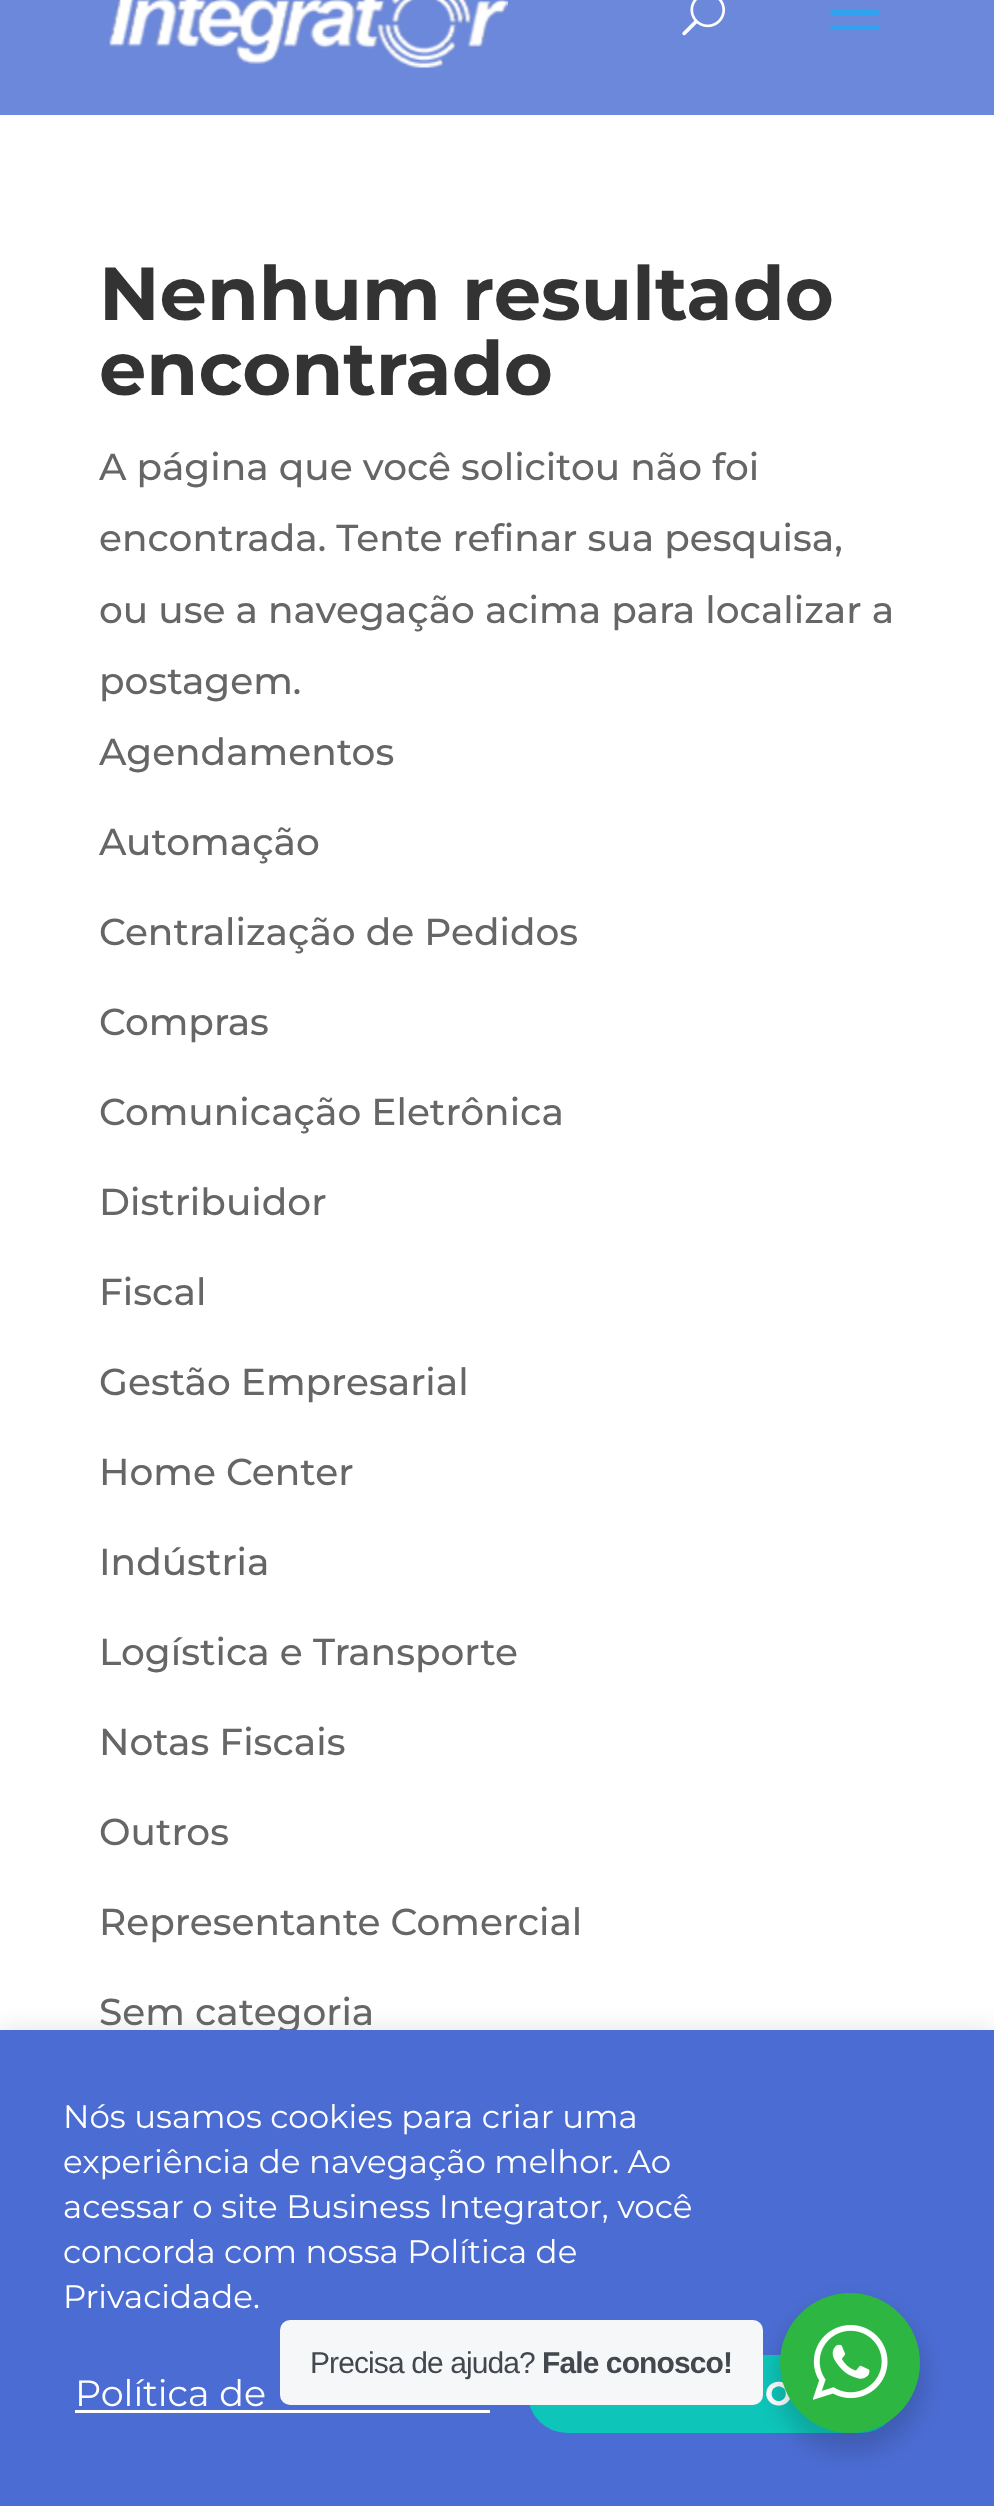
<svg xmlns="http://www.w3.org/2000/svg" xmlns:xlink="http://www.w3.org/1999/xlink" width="994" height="2506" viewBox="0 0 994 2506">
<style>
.cls-1{font:bold 75px Montserrat;fill:#333333}
.cls-2{font:500 37.5px Montserrat;fill:#666666}
.cls-3{font:32.5px Montserrat;fill:#ffffff}
.cls-4{font:36.5px Montserrat;fill:#ffffff}
.cls-5{font:bold 32.5px Montserrat;fill:#ffffff}
.cls-6{font:bold 30px Liberation Sans;letter-spacing:-0.9px;fill:#43474e}
.cls-7{font:30px Liberation Sans;letter-spacing:-0.9px;fill:#43474e}
</style>
<rect width="100%" height="100%" fill="#ffffff"/>
<rect fill="#6c88da" x="0" y="0" width="994" height="115"/>
<image xlink:href="image0.png" x="109" y="0" width="399" height="68"/>
<image xlink:href="image1.png" x="682" y="0" width="43" height="36"/>
<image xlink:href="image2.png" x="830" y="10" width="50" height="20"/>
<rect fill="#acabab" fill-opacity="0.3" filter="blur(12.5px)" x="0" y="2028" width="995" height="477"/>
<text class="cls-1"><tspan x="99" y="320">Nenhum resultado</tspan><tspan x="99" y="395">encontrado</tspan></text>
<text class="cls-2"><tspan x="99" y="480">A página que você solicitou não foi</tspan><tspan x="99" y="551">encontrada. Tente refinar sua pesquisa,</tspan><tspan x="99" y="623">ou use a navegação acima para localizar a</tspan><tspan x="99" y="694">postagem.</tspan><tspan x="99" y="765">Agendamentos</tspan></text>
<text class="cls-2" x="99" y="855">Automação</text>
<text class="cls-2" x="99" y="945">Centralização de Pedidos</text>
<text class="cls-2" x="99" y="1035">Compras</text>
<text class="cls-2" x="99" y="1125">Comunicação Eletrônica</text>
<text class="cls-2" x="99" y="1215">Distribuidor</text>
<text class="cls-2" x="99" y="1305">Fiscal</text>
<text class="cls-2" x="99" y="1395">Gestão Empresarial</text>
<text class="cls-2" x="99" y="1485">Home Center</text>
<text class="cls-2" x="99" y="1575">Indústria</text>
<text class="cls-2" x="99" y="1665">Logística e Transporte</text>
<text class="cls-2" x="99" y="1755">Notas Fiscais</text>
<text class="cls-2" x="99" y="1845">Outros</text>
<text class="cls-2" x="99" y="1935">Representante Comercial</text>
<text class="cls-2" x="99" y="2025">Sem categoria</text>
<rect fill="#4b6cd2" x="0" y="2030" width="994" height="476"/>
<text class="cls-3"><tspan x="63" y="2128">Nós usamos cookies para criar uma</tspan><tspan x="63" y="2173">experiência de navegação melhor. Ao</tspan><tspan x="63" y="2218">acessar o site Business Integrator, você</tspan><tspan x="63" y="2263">concorda com nossa Política de</tspan><tspan x="63" y="2308">Privacidade.</tspan></text>
<text class="cls-4" x="75" y="2406">Política de</text>
<rect fill="#ffffff" x="75" y="2410" width="415" height="3"/>
<rect fill="#0ec5ba" x="528" y="2355" width="372" height="78" rx="39"/>
<text class="cls-5" x="765" y="2405">O</text>
<rect fill="#000000" fill-opacity="0.14" filter="blur(10px)" x="775" y="2303" width="150" height="150" rx="75"/>
<rect fill="#f5f7f9" x="280" y="2320" width="483" height="85" rx="10"/>
<text class="cls-6" x="542" y="2373">Fale conosco!</text>
<text class="cls-7" x="310" y="2373">Precisa de ajuda?</text>
<circle fill="#2db742" cx="850" cy="2363" r="70"/>
<image xlink:href="image3.png" x="813" y="2325" width="75" height="75"/>
</svg>
